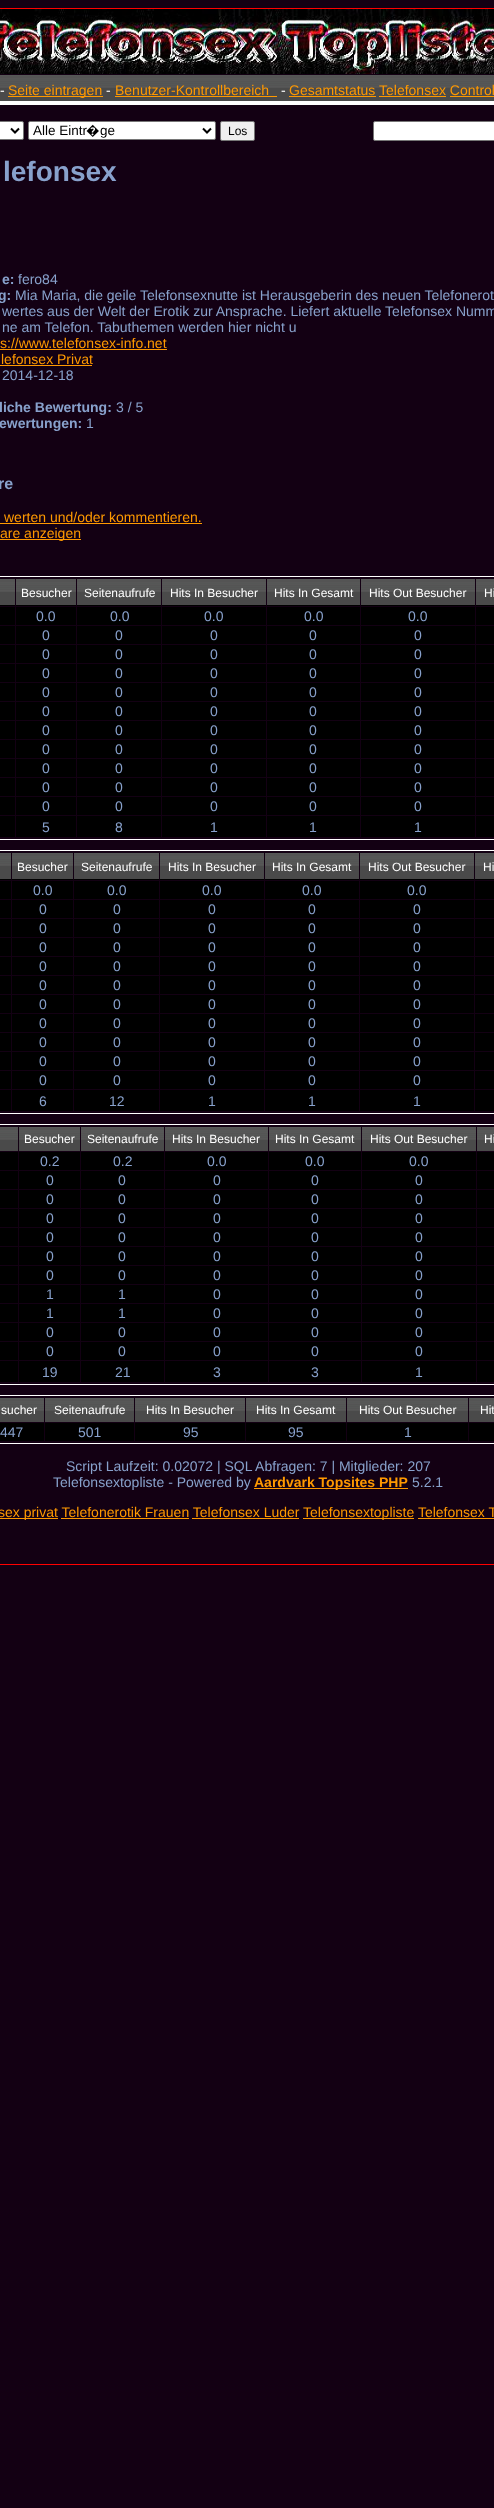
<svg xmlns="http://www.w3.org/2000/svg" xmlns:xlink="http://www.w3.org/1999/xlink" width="494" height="2508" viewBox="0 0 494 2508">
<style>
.cls-1{font:14px Liberation Sans;fill:#ffffff}
.cls-2{font:14px Liberation Sans;fill:#ff9900}
.cls-3{font:13.5px Liberation Sans;fill:#000000}
.cls-4{font:13.5px Noto Sans;fill:#000000}
.cls-5{font:12px Liberation Sans;fill:#000000}
.cls-6{font:bold 28px Liberation Sans;fill:#88a1cc}
.cls-7{font:bold 14px Liberation Sans;fill:#88a1cc}
.cls-8{font:14px Liberation Sans;fill:#88a1cc}
.cls-9{font:bold 16px Liberation Sans;fill:#88a1cc}
.cls-10{font:12px Liberation Sans;fill:#ffffff}
.cls-11{font:bold 14px Liberation Sans;fill:#ff9900}
</style>
<rect width="100%" height="100%" fill="#130013"/>
<rect fill="none" stroke="#ff0000" x="-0.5" y="8.5" width="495" height="1556"/>
<image xlink:href="image0.png" x="0" y="9" width="494" height="65"/>
<rect fill="#ffffff" x="0" y="101" width="494" height="4"/>
<image xlink:href="image1.png" x="0" y="75" width="494" height="26"/>
<rect fill="#ff9900" x="8" y="96" width="95" height="1"/>
<rect fill="#ff9900" x="115" y="96" width="162" height="1"/>
<rect fill="#ff9900" x="289" y="96" width="87" height="1"/>
<rect fill="#ff9900" x="379" y="96" width="67" height="1"/>
<rect fill="#ff9900" x="450" y="96" width="44" height="1"/>
<rect fill="#ffffff" stroke="#767676" x="-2.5" y="121.5" width="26" height="18" rx="1.5"/>
<path fill="none" stroke="#000000" stroke-width="2" d="M11 128.5L15 132.5L19 128.5"/>
<rect fill="#ffffff" stroke="#767676" x="28.5" y="121.5" width="187" height="18" rx="1.5"/>
<path fill="none" stroke="#000000" stroke-width="2" d="M203 128.5L207 132.5L211 128.5"/>
<rect fill="#efefef" stroke="#767676" x="220.5" y="121.5" width="34" height="19" rx="1.5"/>
<rect fill="#ffffff" stroke="#767676" x="373.5" y="121.5" width="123" height="19" rx="1.5"/>
<rect fill="#ff9900" x="0" y="349" width="167" height="1"/>
<rect fill="#ff9900" x="0" y="365" width="92" height="1"/>
<rect fill="#ff9900" x="0" y="523" width="202" height="1"/>
<rect fill="#ff9900" x="0" y="539" width="81" height="1"/>
<rect fill="none" stroke="#ffffff" x="-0.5" y="576.5" width="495" height="263"/>
<rect fill="#000000" x="0" y="605" width="15" height="1"/>
<image xlink:href="image2.png" x="0" y="579" width="15" height="26"/>
<rect fill="#000000" x="16" y="605" width="60" height="1"/>
<image xlink:href="image3.png" x="16" y="579" width="60" height="26"/>
<rect fill="#000000" x="77" y="605" width="84" height="1"/>
<image xlink:href="image4.png" x="77" y="579" width="84" height="26"/>
<rect fill="#000000" x="162" y="605" width="104" height="1"/>
<image xlink:href="image5.png" x="162" y="579" width="104" height="26"/>
<rect fill="#000000" x="267" y="605" width="93" height="1"/>
<image xlink:href="image6.png" x="267" y="579" width="93" height="26"/>
<rect fill="#000000" x="361" y="605" width="114" height="1"/>
<image xlink:href="image7.png" x="361" y="579" width="114" height="26"/>
<rect fill="#000000" x="476" y="605" width="18" height="1"/>
<image xlink:href="image8.png" x="476" y="579" width="18" height="26"/>
<rect fill="#000000" x="0" y="607" width="15" height="18"/>
<rect fill="#000000" x="16" y="607" width="60" height="18"/>
<rect fill="#000000" x="77" y="607" width="84" height="18"/>
<rect fill="#000000" x="162" y="607" width="104" height="18"/>
<rect fill="#000000" x="267" y="607" width="93" height="18"/>
<rect fill="#000000" x="361" y="607" width="114" height="18"/>
<rect fill="#000000" x="476" y="607" width="18" height="18"/>
<rect fill="#000000" x="0" y="626" width="15" height="18"/>
<rect fill="#000000" x="16" y="626" width="60" height="18"/>
<rect fill="#000000" x="77" y="626" width="84" height="18"/>
<rect fill="#000000" x="162" y="626" width="104" height="18"/>
<rect fill="#000000" x="267" y="626" width="93" height="18"/>
<rect fill="#000000" x="361" y="626" width="114" height="18"/>
<rect fill="#000000" x="476" y="626" width="18" height="18"/>
<rect fill="#000000" x="0" y="645" width="15" height="18"/>
<rect fill="#000000" x="16" y="645" width="60" height="18"/>
<rect fill="#000000" x="77" y="645" width="84" height="18"/>
<rect fill="#000000" x="162" y="645" width="104" height="18"/>
<rect fill="#000000" x="267" y="645" width="93" height="18"/>
<rect fill="#000000" x="361" y="645" width="114" height="18"/>
<rect fill="#000000" x="476" y="645" width="18" height="18"/>
<rect fill="#000000" x="0" y="664" width="15" height="18"/>
<rect fill="#000000" x="16" y="664" width="60" height="18"/>
<rect fill="#000000" x="77" y="664" width="84" height="18"/>
<rect fill="#000000" x="162" y="664" width="104" height="18"/>
<rect fill="#000000" x="267" y="664" width="93" height="18"/>
<rect fill="#000000" x="361" y="664" width="114" height="18"/>
<rect fill="#000000" x="476" y="664" width="18" height="18"/>
<rect fill="#000000" x="0" y="683" width="15" height="18"/>
<rect fill="#000000" x="16" y="683" width="60" height="18"/>
<rect fill="#000000" x="77" y="683" width="84" height="18"/>
<rect fill="#000000" x="162" y="683" width="104" height="18"/>
<rect fill="#000000" x="267" y="683" width="93" height="18"/>
<rect fill="#000000" x="361" y="683" width="114" height="18"/>
<rect fill="#000000" x="476" y="683" width="18" height="18"/>
<rect fill="#000000" x="0" y="702" width="15" height="18"/>
<rect fill="#000000" x="16" y="702" width="60" height="18"/>
<rect fill="#000000" x="77" y="702" width="84" height="18"/>
<rect fill="#000000" x="162" y="702" width="104" height="18"/>
<rect fill="#000000" x="267" y="702" width="93" height="18"/>
<rect fill="#000000" x="361" y="702" width="114" height="18"/>
<rect fill="#000000" x="476" y="702" width="18" height="18"/>
<rect fill="#000000" x="0" y="721" width="15" height="18"/>
<rect fill="#000000" x="16" y="721" width="60" height="18"/>
<rect fill="#000000" x="77" y="721" width="84" height="18"/>
<rect fill="#000000" x="162" y="721" width="104" height="18"/>
<rect fill="#000000" x="267" y="721" width="93" height="18"/>
<rect fill="#000000" x="361" y="721" width="114" height="18"/>
<rect fill="#000000" x="476" y="721" width="18" height="18"/>
<rect fill="#000000" x="0" y="740" width="15" height="18"/>
<rect fill="#000000" x="16" y="740" width="60" height="18"/>
<rect fill="#000000" x="77" y="740" width="84" height="18"/>
<rect fill="#000000" x="162" y="740" width="104" height="18"/>
<rect fill="#000000" x="267" y="740" width="93" height="18"/>
<rect fill="#000000" x="361" y="740" width="114" height="18"/>
<rect fill="#000000" x="476" y="740" width="18" height="18"/>
<rect fill="#000000" x="0" y="759" width="15" height="18"/>
<rect fill="#000000" x="16" y="759" width="60" height="18"/>
<rect fill="#000000" x="77" y="759" width="84" height="18"/>
<rect fill="#000000" x="162" y="759" width="104" height="18"/>
<rect fill="#000000" x="267" y="759" width="93" height="18"/>
<rect fill="#000000" x="361" y="759" width="114" height="18"/>
<rect fill="#000000" x="476" y="759" width="18" height="18"/>
<rect fill="#000000" x="0" y="778" width="15" height="18"/>
<rect fill="#000000" x="16" y="778" width="60" height="18"/>
<rect fill="#000000" x="77" y="778" width="84" height="18"/>
<rect fill="#000000" x="162" y="778" width="104" height="18"/>
<rect fill="#000000" x="267" y="778" width="93" height="18"/>
<rect fill="#000000" x="361" y="778" width="114" height="18"/>
<rect fill="#000000" x="476" y="778" width="18" height="18"/>
<rect fill="#000000" x="0" y="797" width="15" height="18"/>
<rect fill="#000000" x="16" y="797" width="60" height="18"/>
<rect fill="#000000" x="77" y="797" width="84" height="18"/>
<rect fill="#000000" x="162" y="797" width="104" height="18"/>
<rect fill="#000000" x="267" y="797" width="93" height="18"/>
<rect fill="#000000" x="361" y="797" width="114" height="18"/>
<rect fill="#000000" x="476" y="797" width="18" height="18"/>
<rect fill="#000000" x="0" y="816" width="15" height="21"/>
<rect fill="#000000" x="16" y="816" width="60" height="21"/>
<rect fill="#000000" x="77" y="816" width="84" height="21"/>
<rect fill="#000000" x="162" y="816" width="104" height="21"/>
<rect fill="#000000" x="267" y="816" width="93" height="21"/>
<rect fill="#000000" x="361" y="816" width="114" height="21"/>
<rect fill="#000000" x="476" y="816" width="18" height="21"/>
<rect fill="none" stroke="#ffffff" x="-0.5" y="850.5" width="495" height="263"/>
<rect fill="#000000" x="0" y="879" width="11" height="1"/>
<image xlink:href="image9.png" x="0" y="853" width="11" height="26"/>
<rect fill="#000000" x="12" y="879" width="61" height="1"/>
<image xlink:href="image10.png" x="12" y="853" width="61" height="26"/>
<rect fill="#000000" x="74" y="879" width="85" height="1"/>
<image xlink:href="image11.png" x="74" y="853" width="85" height="26"/>
<rect fill="#000000" x="160" y="879" width="104" height="1"/>
<image xlink:href="image5.png" x="160" y="853" width="104" height="26"/>
<rect fill="#000000" x="265" y="879" width="94" height="1"/>
<image xlink:href="image12.png" x="265" y="853" width="94" height="26"/>
<rect fill="#000000" x="360" y="879" width="114" height="1"/>
<image xlink:href="image7.png" x="360" y="853" width="114" height="26"/>
<rect fill="#000000" x="475" y="879" width="19" height="1"/>
<image xlink:href="image13.png" x="475" y="853" width="19" height="26"/>
<rect fill="#000000" x="0" y="881" width="11" height="18"/>
<rect fill="#000000" x="12" y="881" width="61" height="18"/>
<rect fill="#000000" x="74" y="881" width="85" height="18"/>
<rect fill="#000000" x="160" y="881" width="104" height="18"/>
<rect fill="#000000" x="265" y="881" width="94" height="18"/>
<rect fill="#000000" x="360" y="881" width="114" height="18"/>
<rect fill="#000000" x="475" y="881" width="19" height="18"/>
<rect fill="#000000" x="0" y="900" width="11" height="18"/>
<rect fill="#000000" x="12" y="900" width="61" height="18"/>
<rect fill="#000000" x="74" y="900" width="85" height="18"/>
<rect fill="#000000" x="160" y="900" width="104" height="18"/>
<rect fill="#000000" x="265" y="900" width="94" height="18"/>
<rect fill="#000000" x="360" y="900" width="114" height="18"/>
<rect fill="#000000" x="475" y="900" width="19" height="18"/>
<rect fill="#000000" x="0" y="919" width="11" height="18"/>
<rect fill="#000000" x="12" y="919" width="61" height="18"/>
<rect fill="#000000" x="74" y="919" width="85" height="18"/>
<rect fill="#000000" x="160" y="919" width="104" height="18"/>
<rect fill="#000000" x="265" y="919" width="94" height="18"/>
<rect fill="#000000" x="360" y="919" width="114" height="18"/>
<rect fill="#000000" x="475" y="919" width="19" height="18"/>
<rect fill="#000000" x="0" y="938" width="11" height="18"/>
<rect fill="#000000" x="12" y="938" width="61" height="18"/>
<rect fill="#000000" x="74" y="938" width="85" height="18"/>
<rect fill="#000000" x="160" y="938" width="104" height="18"/>
<rect fill="#000000" x="265" y="938" width="94" height="18"/>
<rect fill="#000000" x="360" y="938" width="114" height="18"/>
<rect fill="#000000" x="475" y="938" width="19" height="18"/>
<rect fill="#000000" x="0" y="957" width="11" height="18"/>
<rect fill="#000000" x="12" y="957" width="61" height="18"/>
<rect fill="#000000" x="74" y="957" width="85" height="18"/>
<rect fill="#000000" x="160" y="957" width="104" height="18"/>
<rect fill="#000000" x="265" y="957" width="94" height="18"/>
<rect fill="#000000" x="360" y="957" width="114" height="18"/>
<rect fill="#000000" x="475" y="957" width="19" height="18"/>
<rect fill="#000000" x="0" y="976" width="11" height="18"/>
<rect fill="#000000" x="12" y="976" width="61" height="18"/>
<rect fill="#000000" x="74" y="976" width="85" height="18"/>
<rect fill="#000000" x="160" y="976" width="104" height="18"/>
<rect fill="#000000" x="265" y="976" width="94" height="18"/>
<rect fill="#000000" x="360" y="976" width="114" height="18"/>
<rect fill="#000000" x="475" y="976" width="19" height="18"/>
<rect fill="#000000" x="0" y="995" width="11" height="18"/>
<rect fill="#000000" x="12" y="995" width="61" height="18"/>
<rect fill="#000000" x="74" y="995" width="85" height="18"/>
<rect fill="#000000" x="160" y="995" width="104" height="18"/>
<rect fill="#000000" x="265" y="995" width="94" height="18"/>
<rect fill="#000000" x="360" y="995" width="114" height="18"/>
<rect fill="#000000" x="475" y="995" width="19" height="18"/>
<rect fill="#000000" x="0" y="1014" width="11" height="18"/>
<rect fill="#000000" x="12" y="1014" width="61" height="18"/>
<rect fill="#000000" x="74" y="1014" width="85" height="18"/>
<rect fill="#000000" x="160" y="1014" width="104" height="18"/>
<rect fill="#000000" x="265" y="1014" width="94" height="18"/>
<rect fill="#000000" x="360" y="1014" width="114" height="18"/>
<rect fill="#000000" x="475" y="1014" width="19" height="18"/>
<rect fill="#000000" x="0" y="1033" width="11" height="18"/>
<rect fill="#000000" x="12" y="1033" width="61" height="18"/>
<rect fill="#000000" x="74" y="1033" width="85" height="18"/>
<rect fill="#000000" x="160" y="1033" width="104" height="18"/>
<rect fill="#000000" x="265" y="1033" width="94" height="18"/>
<rect fill="#000000" x="360" y="1033" width="114" height="18"/>
<rect fill="#000000" x="475" y="1033" width="19" height="18"/>
<rect fill="#000000" x="0" y="1052" width="11" height="18"/>
<rect fill="#000000" x="12" y="1052" width="61" height="18"/>
<rect fill="#000000" x="74" y="1052" width="85" height="18"/>
<rect fill="#000000" x="160" y="1052" width="104" height="18"/>
<rect fill="#000000" x="265" y="1052" width="94" height="18"/>
<rect fill="#000000" x="360" y="1052" width="114" height="18"/>
<rect fill="#000000" x="475" y="1052" width="19" height="18"/>
<rect fill="#000000" x="0" y="1071" width="11" height="18"/>
<rect fill="#000000" x="12" y="1071" width="61" height="18"/>
<rect fill="#000000" x="74" y="1071" width="85" height="18"/>
<rect fill="#000000" x="160" y="1071" width="104" height="18"/>
<rect fill="#000000" x="265" y="1071" width="94" height="18"/>
<rect fill="#000000" x="360" y="1071" width="114" height="18"/>
<rect fill="#000000" x="475" y="1071" width="19" height="18"/>
<rect fill="#000000" x="0" y="1090" width="11" height="21"/>
<rect fill="#000000" x="12" y="1090" width="61" height="21"/>
<rect fill="#000000" x="74" y="1090" width="85" height="21"/>
<rect fill="#000000" x="160" y="1090" width="104" height="21"/>
<rect fill="#000000" x="265" y="1090" width="94" height="21"/>
<rect fill="#000000" x="360" y="1090" width="114" height="21"/>
<rect fill="#000000" x="475" y="1090" width="19" height="21"/>
<rect fill="none" stroke="#ffffff" x="-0.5" y="1124.5" width="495" height="260"/>
<image xlink:href="image14.png" x="0" y="1127" width="18" height="24"/>
<image xlink:href="image15.png" x="19" y="1127" width="61" height="24"/>
<image xlink:href="image16.png" x="81" y="1127" width="83" height="24"/>
<image xlink:href="image17.png" x="165" y="1127" width="103" height="24"/>
<image xlink:href="image18.png" x="269" y="1127" width="92" height="24"/>
<image xlink:href="image19.png" x="362" y="1127" width="114" height="24"/>
<image xlink:href="image20.png" x="477" y="1127" width="17" height="24"/>
<rect fill="#000000" x="0" y="1152" width="18" height="18"/>
<rect fill="#000000" x="19" y="1152" width="61" height="18"/>
<rect fill="#000000" x="81" y="1152" width="83" height="18"/>
<rect fill="#000000" x="165" y="1152" width="103" height="18"/>
<rect fill="#000000" x="269" y="1152" width="92" height="18"/>
<rect fill="#000000" x="362" y="1152" width="114" height="18"/>
<rect fill="#000000" x="477" y="1152" width="17" height="18"/>
<rect fill="#000000" x="0" y="1171" width="18" height="18"/>
<rect fill="#000000" x="19" y="1171" width="61" height="18"/>
<rect fill="#000000" x="81" y="1171" width="83" height="18"/>
<rect fill="#000000" x="165" y="1171" width="103" height="18"/>
<rect fill="#000000" x="269" y="1171" width="92" height="18"/>
<rect fill="#000000" x="362" y="1171" width="114" height="18"/>
<rect fill="#000000" x="477" y="1171" width="17" height="18"/>
<rect fill="#000000" x="0" y="1190" width="18" height="18"/>
<rect fill="#000000" x="19" y="1190" width="61" height="18"/>
<rect fill="#000000" x="81" y="1190" width="83" height="18"/>
<rect fill="#000000" x="165" y="1190" width="103" height="18"/>
<rect fill="#000000" x="269" y="1190" width="92" height="18"/>
<rect fill="#000000" x="362" y="1190" width="114" height="18"/>
<rect fill="#000000" x="477" y="1190" width="17" height="18"/>
<rect fill="#000000" x="0" y="1209" width="18" height="18"/>
<rect fill="#000000" x="19" y="1209" width="61" height="18"/>
<rect fill="#000000" x="81" y="1209" width="83" height="18"/>
<rect fill="#000000" x="165" y="1209" width="103" height="18"/>
<rect fill="#000000" x="269" y="1209" width="92" height="18"/>
<rect fill="#000000" x="362" y="1209" width="114" height="18"/>
<rect fill="#000000" x="477" y="1209" width="17" height="18"/>
<rect fill="#000000" x="0" y="1228" width="18" height="18"/>
<rect fill="#000000" x="19" y="1228" width="61" height="18"/>
<rect fill="#000000" x="81" y="1228" width="83" height="18"/>
<rect fill="#000000" x="165" y="1228" width="103" height="18"/>
<rect fill="#000000" x="269" y="1228" width="92" height="18"/>
<rect fill="#000000" x="362" y="1228" width="114" height="18"/>
<rect fill="#000000" x="477" y="1228" width="17" height="18"/>
<rect fill="#000000" x="0" y="1247" width="18" height="18"/>
<rect fill="#000000" x="19" y="1247" width="61" height="18"/>
<rect fill="#000000" x="81" y="1247" width="83" height="18"/>
<rect fill="#000000" x="165" y="1247" width="103" height="18"/>
<rect fill="#000000" x="269" y="1247" width="92" height="18"/>
<rect fill="#000000" x="362" y="1247" width="114" height="18"/>
<rect fill="#000000" x="477" y="1247" width="17" height="18"/>
<rect fill="#000000" x="0" y="1266" width="18" height="18"/>
<rect fill="#000000" x="19" y="1266" width="61" height="18"/>
<rect fill="#000000" x="81" y="1266" width="83" height="18"/>
<rect fill="#000000" x="165" y="1266" width="103" height="18"/>
<rect fill="#000000" x="269" y="1266" width="92" height="18"/>
<rect fill="#000000" x="362" y="1266" width="114" height="18"/>
<rect fill="#000000" x="477" y="1266" width="17" height="18"/>
<rect fill="#000000" x="0" y="1285" width="18" height="18"/>
<rect fill="#000000" x="19" y="1285" width="61" height="18"/>
<rect fill="#000000" x="81" y="1285" width="83" height="18"/>
<rect fill="#000000" x="165" y="1285" width="103" height="18"/>
<rect fill="#000000" x="269" y="1285" width="92" height="18"/>
<rect fill="#000000" x="362" y="1285" width="114" height="18"/>
<rect fill="#000000" x="477" y="1285" width="17" height="18"/>
<rect fill="#000000" x="0" y="1304" width="18" height="18"/>
<rect fill="#000000" x="19" y="1304" width="61" height="18"/>
<rect fill="#000000" x="81" y="1304" width="83" height="18"/>
<rect fill="#000000" x="165" y="1304" width="103" height="18"/>
<rect fill="#000000" x="269" y="1304" width="92" height="18"/>
<rect fill="#000000" x="362" y="1304" width="114" height="18"/>
<rect fill="#000000" x="477" y="1304" width="17" height="18"/>
<rect fill="#000000" x="0" y="1323" width="18" height="18"/>
<rect fill="#000000" x="19" y="1323" width="61" height="18"/>
<rect fill="#000000" x="81" y="1323" width="83" height="18"/>
<rect fill="#000000" x="165" y="1323" width="103" height="18"/>
<rect fill="#000000" x="269" y="1323" width="92" height="18"/>
<rect fill="#000000" x="362" y="1323" width="114" height="18"/>
<rect fill="#000000" x="477" y="1323" width="17" height="18"/>
<rect fill="#000000" x="0" y="1342" width="18" height="18"/>
<rect fill="#000000" x="19" y="1342" width="61" height="18"/>
<rect fill="#000000" x="81" y="1342" width="83" height="18"/>
<rect fill="#000000" x="165" y="1342" width="103" height="18"/>
<rect fill="#000000" x="269" y="1342" width="92" height="18"/>
<rect fill="#000000" x="362" y="1342" width="114" height="18"/>
<rect fill="#000000" x="477" y="1342" width="17" height="18"/>
<rect fill="#000000" x="0" y="1361" width="18" height="21"/>
<rect fill="#000000" x="19" y="1361" width="61" height="21"/>
<rect fill="#000000" x="81" y="1361" width="83" height="21"/>
<rect fill="#000000" x="165" y="1361" width="103" height="21"/>
<rect fill="#000000" x="269" y="1361" width="92" height="21"/>
<rect fill="#000000" x="362" y="1361" width="114" height="21"/>
<rect fill="#000000" x="477" y="1361" width="17" height="21"/>
<rect fill="none" stroke="#ffffff" x="-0.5" y="1395.5" width="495" height="48"/>
<image xlink:href="image21.png" x="0" y="1398" width="44" height="24"/>
<image xlink:href="image22.png" x="45" y="1398" width="89" height="24"/>
<image xlink:href="image23.png" x="135" y="1398" width="110" height="24"/>
<image xlink:href="image24.png" x="246" y="1398" width="100" height="24"/>
<image xlink:href="image25.png" x="347" y="1398" width="121" height="24"/>
<image xlink:href="image26.png" x="469" y="1398" width="25" height="24"/>
<rect fill="#000000" x="0" y="1423" width="44" height="18"/>
<rect fill="#000000" x="45" y="1423" width="89" height="18"/>
<rect fill="#000000" x="135" y="1423" width="110" height="18"/>
<rect fill="#000000" x="246" y="1423" width="100" height="18"/>
<rect fill="#000000" x="347" y="1423" width="121" height="18"/>
<rect fill="#000000" x="469" y="1423" width="25" height="18"/>
<rect fill="#ff9900" x="254" y="1488" width="154" height="1"/>
<rect fill="#ff9900" x="0" y="1518" width="58" height="1"/>
<rect fill="#ff9900" x="303" y="1518" width="111" height="1"/>
<rect fill="#ff9900" x="61" y="1518" width="128" height="1"/>
<rect fill="#ff9900" x="192" y="1518" width="107" height="1"/>
<rect fill="#ff9900" x="418" y="1518" width="76" height="1"/>
<text class="cls-1" x="0" y="95">-</text>
<text class="cls-2" x="8" y="95">Seite eintragen</text>
<text class="cls-1" x="106" y="95">-</text>
<text class="cls-2" x="115" y="95">Benutzer-Kontrollbereich</text>
<text class="cls-1" x="281" y="95">-</text>
<text class="cls-2" x="289" y="95">Gesamtstatus Telefonsex Control</text>
<text class="cls-3" x="33" y="135">Alle Eintr</text>
<text class="cls-4" x="86" y="135">�</text>
<text class="cls-3" x="100" y="135">ge</text>
<text class="cls-5" x="228" y="135">Los</text>
<text class="cls-6" x="3" y="181">lefonsex</text>
<text class="cls-7" x="2" y="284">e:</text>
<text class="cls-8" x="18" y="284">fero84</text>
<text class="cls-7" x="-2" y="300">g:</text>
<text class="cls-8" x="15" y="300">Mia Maria, die geile Telefonsexnutte ist Herausgeberin des neuen Telefonerot</text>
<text class="cls-8"><tspan x="2" y="316">wertes aus der Welt der Erotik zur Ansprache. Liefert aktuelle Telefonsex Numm</tspan><tspan x="2" y="332">ne am Telefon. Tabuthemen werden hier nicht u</tspan></text>
<text class="cls-2" x="0" y="348">s://www.telefonsex-info.net</text>
<text class="cls-2" x="1" y="364">lefonsex Privat</text>
<text class="cls-8" x="2" y="380">2014-12-18</text>
<text class="cls-7" x="-1" y="412">liche Bewertung:</text>
<text class="cls-8" x="116" y="412">3 / 5</text>
<text class="cls-7" x="-1" y="428">ewertungen:</text>
<text class="cls-8" x="86" y="428">1</text>
<text class="cls-9" x="-2" y="489">re</text>
<text class="cls-2" x="4" y="522">werten und/oder kommentieren.</text>
<text class="cls-2" x="0" y="538">are anzeigen</text>
<text class="cls-10" x="21" y="597">Besucher</text>
<text class="cls-10" x="84" y="597">Seitenaufrufe</text>
<text class="cls-10" x="170" y="597">Hits In Besucher</text>
<text class="cls-10" x="274" y="597">Hits In Gesamt</text>
<text class="cls-10" x="369" y="597">Hits Out Besucher</text>
<text class="cls-10" x="484" y="597">Hi</text>
<text class="cls-8" x="36" y="621">0.0</text>
<text class="cls-8" x="110" y="621">0.0</text>
<text class="cls-8" x="204" y="621">0.0</text>
<text class="cls-8" x="304" y="621">0.0</text>
<text class="cls-8" x="408" y="621">0.0</text>
<text class="cls-8" x="42" y="640">0</text>
<text class="cls-8" x="115" y="640">0</text>
<text class="cls-8" x="210" y="640">0</text>
<text class="cls-8" x="309" y="640">0</text>
<text class="cls-8" x="414" y="640">0</text>
<text class="cls-8" x="42" y="659">0</text>
<text class="cls-8" x="115" y="659">0</text>
<text class="cls-8" x="210" y="659">0</text>
<text class="cls-8" x="309" y="659">0</text>
<text class="cls-8" x="414" y="659">0</text>
<text class="cls-8" x="42" y="678">0</text>
<text class="cls-8" x="115" y="678">0</text>
<text class="cls-8" x="210" y="678">0</text>
<text class="cls-8" x="309" y="678">0</text>
<text class="cls-8" x="414" y="678">0</text>
<text class="cls-8" x="42" y="697">0</text>
<text class="cls-8" x="115" y="697">0</text>
<text class="cls-8" x="210" y="697">0</text>
<text class="cls-8" x="309" y="697">0</text>
<text class="cls-8" x="414" y="697">0</text>
<text class="cls-8" x="42" y="716">0</text>
<text class="cls-8" x="115" y="716">0</text>
<text class="cls-8" x="210" y="716">0</text>
<text class="cls-8" x="309" y="716">0</text>
<text class="cls-8" x="414" y="716">0</text>
<text class="cls-8" x="42" y="735">0</text>
<text class="cls-8" x="115" y="735">0</text>
<text class="cls-8" x="210" y="735">0</text>
<text class="cls-8" x="309" y="735">0</text>
<text class="cls-8" x="414" y="735">0</text>
<text class="cls-8" x="42" y="754">0</text>
<text class="cls-8" x="115" y="754">0</text>
<text class="cls-8" x="210" y="754">0</text>
<text class="cls-8" x="309" y="754">0</text>
<text class="cls-8" x="414" y="754">0</text>
<text class="cls-8" x="42" y="773">0</text>
<text class="cls-8" x="115" y="773">0</text>
<text class="cls-8" x="210" y="773">0</text>
<text class="cls-8" x="309" y="773">0</text>
<text class="cls-8" x="414" y="773">0</text>
<text class="cls-8" x="42" y="792">0</text>
<text class="cls-8" x="115" y="792">0</text>
<text class="cls-8" x="210" y="792">0</text>
<text class="cls-8" x="309" y="792">0</text>
<text class="cls-8" x="414" y="792">0</text>
<text class="cls-8" x="42" y="811">0</text>
<text class="cls-8" x="115" y="811">0</text>
<text class="cls-8" x="210" y="811">0</text>
<text class="cls-8" x="309" y="811">0</text>
<text class="cls-8" x="414" y="811">0</text>
<text class="cls-8" x="42" y="832">5</text>
<text class="cls-8" x="115" y="832">8</text>
<text class="cls-8" x="210" y="832">1</text>
<text class="cls-8" x="309" y="832">1</text>
<text class="cls-8" x="414" y="832">1</text>
<text class="cls-10" x="17" y="871">Besucher</text>
<text class="cls-10" x="81" y="871">Seitenaufrufe</text>
<text class="cls-10" x="168" y="871">Hits In Besucher</text>
<text class="cls-10" x="272" y="871">Hits In Gesamt</text>
<text class="cls-10" x="368" y="871">Hits Out Besucher</text>
<text class="cls-10" x="483" y="871">Hi</text>
<text class="cls-8" x="33" y="895">0.0</text>
<text class="cls-8" x="107" y="895">0.0</text>
<text class="cls-8" x="202" y="895">0.0</text>
<text class="cls-8" x="302" y="895">0.0</text>
<text class="cls-8" x="407" y="895">0.0</text>
<text class="cls-8" x="39" y="914">0</text>
<text class="cls-8" x="113" y="914">0</text>
<text class="cls-8" x="208" y="914">0</text>
<text class="cls-8" x="308" y="914">0</text>
<text class="cls-8" x="413" y="914">0</text>
<text class="cls-8" x="39" y="933">0</text>
<text class="cls-8" x="113" y="933">0</text>
<text class="cls-8" x="208" y="933">0</text>
<text class="cls-8" x="308" y="933">0</text>
<text class="cls-8" x="413" y="933">0</text>
<text class="cls-8" x="39" y="952">0</text>
<text class="cls-8" x="113" y="952">0</text>
<text class="cls-8" x="208" y="952">0</text>
<text class="cls-8" x="308" y="952">0</text>
<text class="cls-8" x="413" y="952">0</text>
<text class="cls-8" x="39" y="971">0</text>
<text class="cls-8" x="113" y="971">0</text>
<text class="cls-8" x="208" y="971">0</text>
<text class="cls-8" x="308" y="971">0</text>
<text class="cls-8" x="413" y="971">0</text>
<text class="cls-8" x="39" y="990">0</text>
<text class="cls-8" x="113" y="990">0</text>
<text class="cls-8" x="208" y="990">0</text>
<text class="cls-8" x="308" y="990">0</text>
<text class="cls-8" x="413" y="990">0</text>
<text class="cls-8" x="39" y="1009">0</text>
<text class="cls-8" x="113" y="1009">0</text>
<text class="cls-8" x="208" y="1009">0</text>
<text class="cls-8" x="308" y="1009">0</text>
<text class="cls-8" x="413" y="1009">0</text>
<text class="cls-8" x="39" y="1028">0</text>
<text class="cls-8" x="113" y="1028">0</text>
<text class="cls-8" x="208" y="1028">0</text>
<text class="cls-8" x="308" y="1028">0</text>
<text class="cls-8" x="413" y="1028">0</text>
<text class="cls-8" x="39" y="1047">0</text>
<text class="cls-8" x="113" y="1047">0</text>
<text class="cls-8" x="208" y="1047">0</text>
<text class="cls-8" x="308" y="1047">0</text>
<text class="cls-8" x="413" y="1047">0</text>
<text class="cls-8" x="39" y="1066">0</text>
<text class="cls-8" x="113" y="1066">0</text>
<text class="cls-8" x="208" y="1066">0</text>
<text class="cls-8" x="308" y="1066">0</text>
<text class="cls-8" x="413" y="1066">0</text>
<text class="cls-8" x="39" y="1085">0</text>
<text class="cls-8" x="113" y="1085">0</text>
<text class="cls-8" x="208" y="1085">0</text>
<text class="cls-8" x="308" y="1085">0</text>
<text class="cls-8" x="413" y="1085">0</text>
<text class="cls-8" x="39" y="1106">6</text>
<text class="cls-8" x="109" y="1106">12</text>
<text class="cls-8" x="208" y="1106">1</text>
<text class="cls-8" x="308" y="1106">1</text>
<text class="cls-8" x="413" y="1106">1</text>
<text class="cls-10" x="24" y="1143">Besucher</text>
<text class="cls-10" x="87" y="1143">Seitenaufrufe</text>
<text class="cls-10" x="172" y="1143">Hits In Besucher</text>
<text class="cls-10" x="275" y="1143">Hits In Gesamt</text>
<text class="cls-10" x="370" y="1143">Hits Out Besucher</text>
<text class="cls-10" x="484" y="1143">Hi</text>
<text class="cls-8" x="40" y="1166">0.2</text>
<text class="cls-8" x="113" y="1166">0.2</text>
<text class="cls-8" x="207" y="1166">0.0</text>
<text class="cls-8" x="305" y="1166">0.0</text>
<text class="cls-8" x="409" y="1166">0.0</text>
<text class="cls-8" x="46" y="1185">0</text>
<text class="cls-8" x="118" y="1185">0</text>
<text class="cls-8" x="213" y="1185">0</text>
<text class="cls-8" x="311" y="1185">0</text>
<text class="cls-8" x="415" y="1185">0</text>
<text class="cls-8" x="46" y="1204">0</text>
<text class="cls-8" x="118" y="1204">0</text>
<text class="cls-8" x="213" y="1204">0</text>
<text class="cls-8" x="311" y="1204">0</text>
<text class="cls-8" x="415" y="1204">0</text>
<text class="cls-8" x="46" y="1223">0</text>
<text class="cls-8" x="118" y="1223">0</text>
<text class="cls-8" x="213" y="1223">0</text>
<text class="cls-8" x="311" y="1223">0</text>
<text class="cls-8" x="415" y="1223">0</text>
<text class="cls-8" x="46" y="1242">0</text>
<text class="cls-8" x="118" y="1242">0</text>
<text class="cls-8" x="213" y="1242">0</text>
<text class="cls-8" x="311" y="1242">0</text>
<text class="cls-8" x="415" y="1242">0</text>
<text class="cls-8" x="46" y="1261">0</text>
<text class="cls-8" x="118" y="1261">0</text>
<text class="cls-8" x="213" y="1261">0</text>
<text class="cls-8" x="311" y="1261">0</text>
<text class="cls-8" x="415" y="1261">0</text>
<text class="cls-8" x="46" y="1280">0</text>
<text class="cls-8" x="118" y="1280">0</text>
<text class="cls-8" x="213" y="1280">0</text>
<text class="cls-8" x="311" y="1280">0</text>
<text class="cls-8" x="415" y="1280">0</text>
<text class="cls-8" x="46" y="1299">1</text>
<text class="cls-8" x="118" y="1299">1</text>
<text class="cls-8" x="213" y="1299">0</text>
<text class="cls-8" x="311" y="1299">0</text>
<text class="cls-8" x="415" y="1299">0</text>
<text class="cls-8" x="46" y="1318">1</text>
<text class="cls-8" x="118" y="1318">1</text>
<text class="cls-8" x="213" y="1318">0</text>
<text class="cls-8" x="311" y="1318">0</text>
<text class="cls-8" x="415" y="1318">0</text>
<text class="cls-8" x="46" y="1337">0</text>
<text class="cls-8" x="118" y="1337">0</text>
<text class="cls-8" x="213" y="1337">0</text>
<text class="cls-8" x="311" y="1337">0</text>
<text class="cls-8" x="415" y="1337">0</text>
<text class="cls-8" x="46" y="1356">0</text>
<text class="cls-8" x="118" y="1356">0</text>
<text class="cls-8" x="213" y="1356">0</text>
<text class="cls-8" x="311" y="1356">0</text>
<text class="cls-8" x="415" y="1356">0</text>
<text class="cls-8" x="42" y="1377">19</text>
<text class="cls-8" x="115" y="1377">21</text>
<text class="cls-8" x="213" y="1377">3</text>
<text class="cls-8" x="311" y="1377">3</text>
<text class="cls-8" x="415" y="1377">1</text>
<text class="cls-10" x="1" y="1414">sucher</text>
<text class="cls-10" x="54" y="1414">Seitenaufrufe</text>
<text class="cls-10" x="146" y="1414">Hits In Besucher</text>
<text class="cls-10" x="256" y="1414">Hits In Gesamt</text>
<text class="cls-10" x="359" y="1414">Hits Out Besucher</text>
<text class="cls-10" x="480" y="1414">Hit</text>
<text class="cls-8" x="0" y="1437">447</text>
<text class="cls-8" x="78" y="1437">501</text>
<text class="cls-8" x="183" y="1437">95</text>
<text class="cls-8" x="288" y="1437">95</text>
<text class="cls-8" x="404" y="1437">1</text>
<text class="cls-8" x="66" y="1471">Script Laufzeit: 0.02072 | SQL Abfragen: 7 | Mitglieder: 207</text>
<text class="cls-8" x="53" y="1487">Telefonsextopliste - Powered by</text>
<text class="cls-11" x="254" y="1487">Aardvark Topsites PHP</text>
<text class="cls-8" x="412" y="1487">5.2.1</text>
<text class="cls-2" x="-2" y="1517">sex privat Telefonerotik Frauen Telefonsex Luder</text>
<text class="cls-2" x="303" y="1517">Telefonsextopliste Telefonsex T</text>
</svg>
